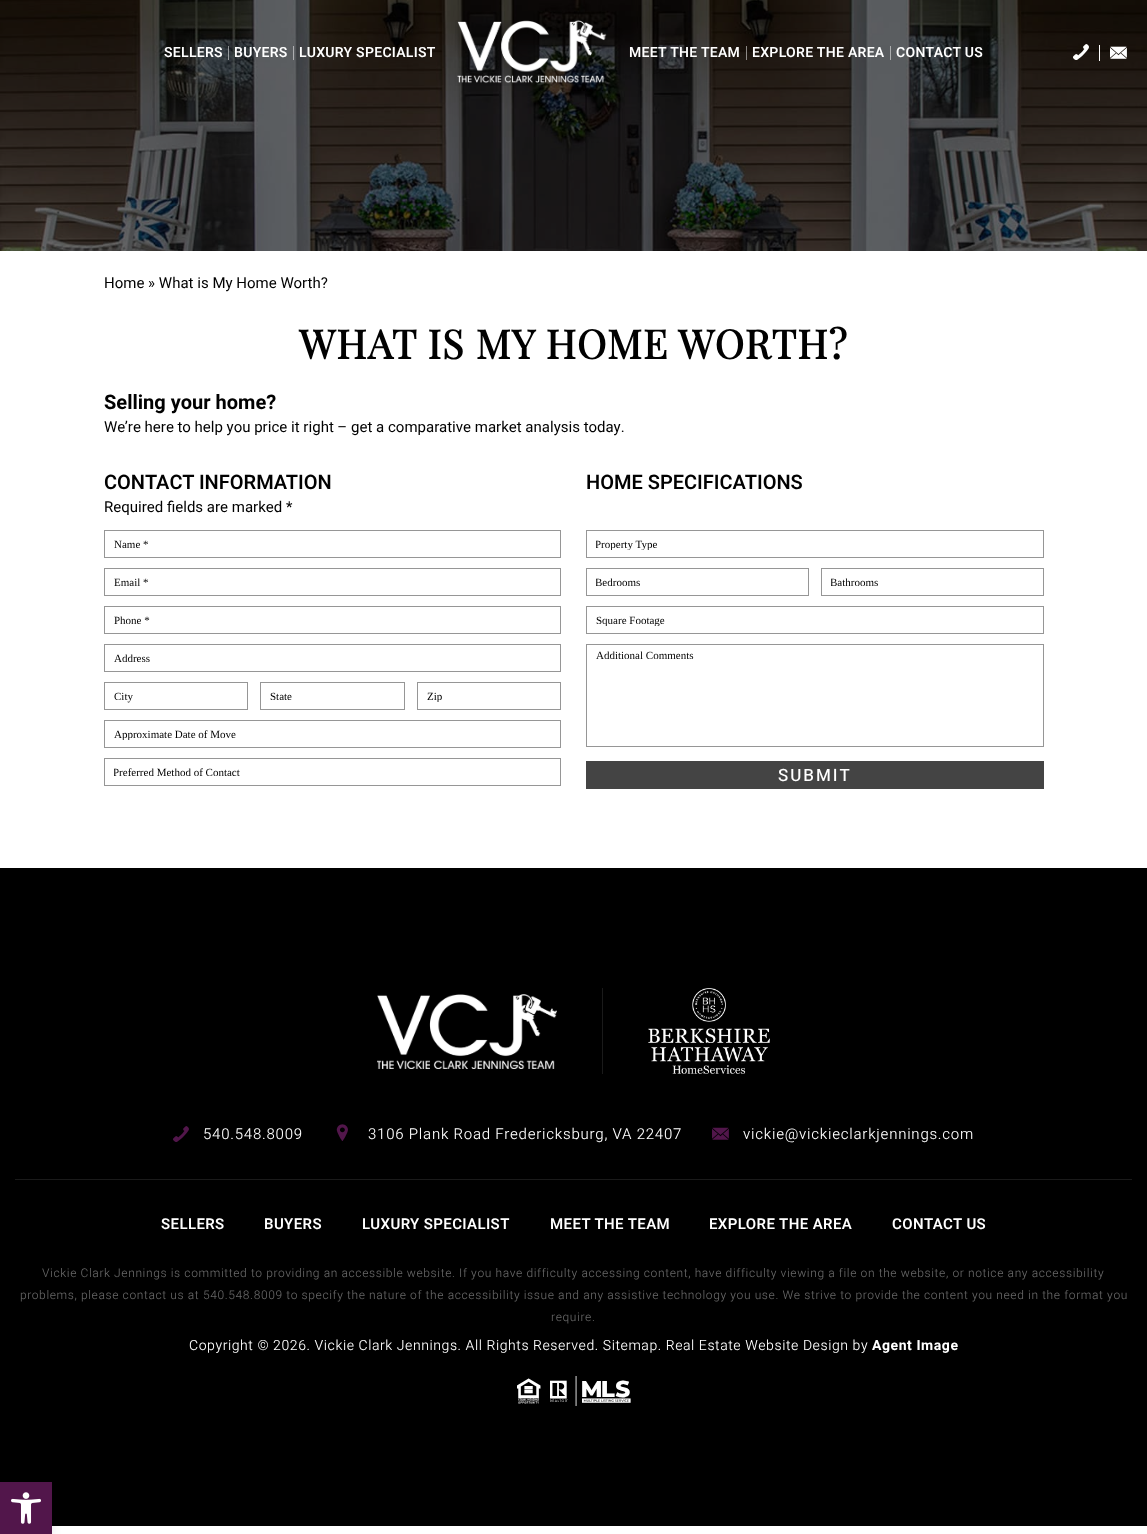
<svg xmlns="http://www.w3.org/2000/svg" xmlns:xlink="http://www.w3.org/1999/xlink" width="1147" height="1534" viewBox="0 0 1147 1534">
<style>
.cls-1{font:600 14px Heebo;letter-spacing:0.3px;fill:#ffffff}
.cls-2{font:16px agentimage;fill:#ffffff}
.cls-3{font:12px agentimage;fill:#ffffff}
.cls-4{font:15px Heebo;fill:#010101}
.cls-5{font:bold 40px Playfair Display;letter-spacing:1px;fill:#010101}
.cls-6{font:bold 20px Heebo;fill:#010101}
.cls-7{font:600 20px Heebo;fill:#010101}
.cls-8{font:11px Liberation Serif;fill:#010101}
.cls-9{font:500 17px Heebo;letter-spacing:2px;fill:#ffffff}
.cls-10{font:16px agentimage;letter-spacing:0.75px;fill:#52164b}
.cls-11{font:300 15px Heebo;letter-spacing:0.75px;fill:#ffffff}
.cls-12{font:20px agentimage;letter-spacing:0.75px;fill:#52164b}
.cls-13{font:12px agentimage;letter-spacing:0.75px;fill:#52164b}
.cls-14{font:600 15px Heebo;letter-spacing:0.4px;fill:#ffffff}
.cls-15{font:300 12px Heebo;letter-spacing:0.6px;fill:#666666}
.cls-16{font:300 14px Heebo;letter-spacing:0.56px;fill:#ffffff}
.cls-17{font:bold 14px Heebo;letter-spacing:0.56px;fill:#ffffff}
.cls-18{font:25px agentimage;fill:#ffffff}
.cls-19{font:30px agentimage;fill:#ffffff}
</style>
<defs>
<clipPath id="clip1"><rect x="427" y="690" width="124" height="12"/></clipPath>
<clipPath id="clip2"><rect x="114" y="728" width="437" height="12"/></clipPath>
<clipPath id="clip3"><rect x="114" y="766" width="437" height="12"/></clipPath>
<clipPath id="clip4"><rect x="596" y="538" width="438" height="12"/></clipPath>
<clipPath id="clip5"><rect x="596" y="576" width="203" height="12"/></clipPath>
<clipPath id="clip6"><rect x="831" y="576" width="203" height="12"/></clipPath>
<clipPath id="clip7"><rect x="596" y="614" width="438" height="12"/></clipPath>
</defs>
<rect width="100%" height="100%" fill="#ffffff"/>
<image xlink:href="image1.png" x="0" y="0" width="1147" height="251"/>
<rect fill="#ffffff" fill-opacity="0.5" x="228" y="46" width="1" height="14"/>
<rect fill="#adaeb0" x="293" y="46" width="1" height="14"/>
<image xlink:href="image0.png" x="455" y="20" width="152" height="66"/>
<rect fill="#ffffff" fill-opacity="0.5" x="746" y="46" width="1" height="14"/>
<rect fill="#acaeaf" x="890" y="46" width="1" height="14"/>
<rect fill="#ffffff" x="1099" y="45" width="1" height="16"/>
<rect fill="none" stroke="#969696" x="104.5" y="530.5" width="456" height="27"/>
<rect fill="none" stroke="#969696" x="104.5" y="568.5" width="456" height="27"/>
<rect fill="none" stroke="#969696" x="104.5" y="606.5" width="456" height="27"/>
<rect fill="none" stroke="#969696" x="104.5" y="644.5" width="456" height="27"/>
<rect fill="none" stroke="#969696" x="104.5" y="682.5" width="143" height="27"/>
<rect fill="none" stroke="#969696" x="260.5" y="682.5" width="144" height="27"/>
<rect fill="none" stroke="#969696" x="417.5" y="682.5" width="143" height="27"/>
<rect fill="none" stroke="#969696" x="104.5" y="720.5" width="456" height="27"/>
<rect fill="none" stroke="#969696" x="104.5" y="758.5" width="456" height="27"/>
<rect fill="none" stroke="#969696" x="586.5" y="530.5" width="457" height="27"/>
<rect fill="none" stroke="#969696" x="586.5" y="568.5" width="222" height="27"/>
<rect fill="none" stroke="#969696" x="821.5" y="568.5" width="222" height="27"/>
<rect fill="none" stroke="#969696" x="586.5" y="606.5" width="457" height="27"/>
<rect fill="none" stroke="#969696" x="586.5" y="644.5" width="457" height="102"/>
<rect fill="#444444" x="586" y="761" width="458" height="28"/>
<rect fill="#000000" x="0" y="868" width="1147" height="658"/>
<image xlink:href="image2.png" x="377" y="994" width="180" height="75"/>
<rect fill="#1a1a1a" x="602" y="988" width="1" height="86"/>
<image xlink:href="image3.png" x="648" y="988" width="122" height="86"/>
<rect fill="#1a1a1a" x="15" y="1179" width="1117" height="1"/>
<rect fill="#000000" fill-opacity="0.1" filter="blur(5px)" x="0" y="1482" width="52" height="52"/>
<rect fill="#52164b" x="0" y="1482" width="52" height="52"/>
<image xlink:href="image4.png" x="11" y="1492" width="30" height="32"/>
<text class="cls-1" x="164" y="57">SELLERS</text>
<text class="cls-1" x="234" y="57">BUYERS</text>
<text class="cls-1" x="299" y="57">LUXURY SPECIALIST</text>
<text class="cls-1" x="629" y="57">MEET THE TEAM</text>
<text class="cls-1" x="752" y="57">EXPLORE THE AREA</text>
<text class="cls-1" x="896" y="57">CONTACT US</text>
<text class="cls-2" x="1073" y="59">򰈄</text>
<text class="cls-3" x="1110" y="58">򰄢</text>
<text class="cls-4" x="104" y="288">Home » What is My Home Worth?</text>
<text class="cls-5" x="299" y="359">WHAT IS MY HOME WORTH?</text>
<text class="cls-6" x="104" y="409">Selling your home?</text>
<text class="cls-4" x="104" y="432">We’re here to help you price it right – get a comparative market analysis today.</text>
<text class="cls-7" x="104" y="489">CONTACT INFORMATION</text>
<text class="cls-4" x="104" y="512">Required fields are marked *</text>
<text class="cls-8" x="114" y="548">Name *</text>
<text class="cls-8" x="114" y="586">Email *</text>
<text class="cls-8" x="114" y="624">Phone *</text>
<text class="cls-8" x="114" y="662">Address</text>
<text class="cls-8" x="114" y="700">City</text>
<text class="cls-8" x="270" y="700">State</text>
<g clip-path="url(#clip1)">
<text class="cls-8" x="427" y="700">Zip</text>
</g>
<g clip-path="url(#clip2)">
<text class="cls-8" x="114" y="738">Approximate Date of Move</text>
</g>
<g clip-path="url(#clip3)">
<text class="cls-8" x="113" y="776">Preferred Method of Contact</text>
</g>
<text class="cls-7" x="586" y="489">HOME SPECIFICATIONS</text>
<g clip-path="url(#clip4)">
<text class="cls-8" x="595" y="548">Property Type</text>
</g>
<g clip-path="url(#clip5)">
<text class="cls-8" x="595" y="586">Bedrooms</text>
</g>
<g clip-path="url(#clip6)">
<text class="cls-8" x="830" y="586">Bathrooms</text>
</g>
<g clip-path="url(#clip7)">
<text class="cls-8" x="596" y="624">Square Footage</text>
</g>
<text class="cls-8" x="596" y="659">Additional Comments</text>
<text class="cls-9" x="778" y="781">SUBMIT</text>
<text class="cls-10" x="173" y="1141">򰈄</text>
<text class="cls-11" x="203" y="1139">540.548.8009</text>
<text class="cls-12" x="333" y="1143">򰁘</text>
<text class="cls-11" x="368" y="1139">3106 Plank Road Fredericksburg, VA 22407</text>
<text class="cls-13" x="712" y="1139">򰄢</text>
<text class="cls-11" x="743" y="1139">vickie@vickieclarkjennings.com</text>
<text class="cls-14" x="161" y="1229">SELLERS</text>
<text class="cls-14" x="264" y="1229">BUYERS</text>
<text class="cls-14" x="362" y="1229">LUXURY SPECIALIST</text>
<text class="cls-14" x="550" y="1229">MEET THE TEAM</text>
<text class="cls-14" x="709" y="1229">EXPLORE THE AREA</text>
<text class="cls-14" x="892" y="1229">CONTACT US</text>
<text class="cls-15" x="42" y="1277">Vickie Clark Jennings is committed to providing an accessible website. If you have difficulty accessing content, have difficulty viewing a file on the website, or notice any accessibility</text>
<text class="cls-15" x="20" y="1299">problems, please contact us at 540.548.8009 to specify the nature of the accessibility issue and any assistive technology you use. We strive to provide the content you need in the format you</text>
<text class="cls-15" x="551" y="1321">require.</text>
<text class="cls-16" x="189" y="1350">Copyright © 2026. Vickie Clark Jennings. All Rights Reserved. Sitemap. Real Estate Website Design by</text>
<text class="cls-17" x="872" y="1350">Agent Image</text>
<text class="cls-18" x="517" y="1402">򰂐</text>
<text class="cls-19" x="550" y="1404">򰌇</text>
</svg>
